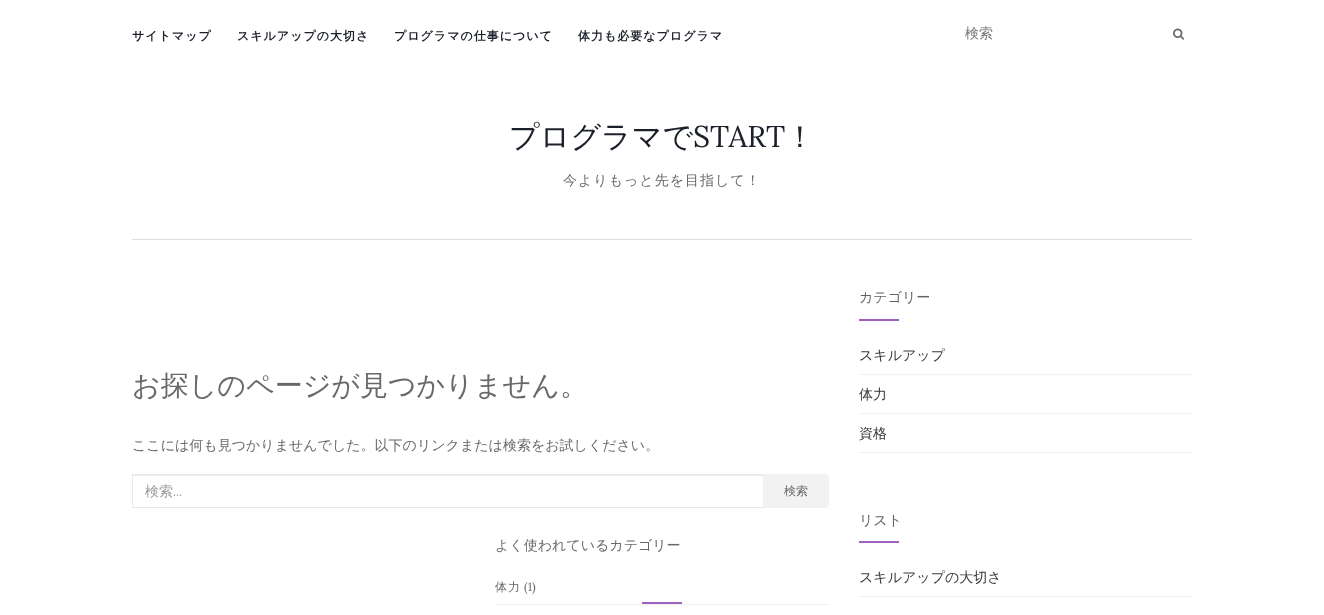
<svg xmlns="http://www.w3.org/2000/svg" xmlns:xlink="http://www.w3.org/1999/xlink" width="1324" height="615" viewBox="0 0 1324 615">
<style>
.cls-1{font:bold 12px WenQuanYi Zen Hei;letter-spacing:1px;fill:#1c202a}
.cls-2{font:500 14px WenQuanYi Zen Hei;fill:#757575}
.cls-3{font:500 30px WenQuanYi Zen Hei;fill:#1c202a}
.cls-4{font:30px Lora;fill:#1c202a}
.cls-5{font:500 14px WenQuanYi Zen Hei;letter-spacing:1px;fill:#696969}
.cls-6{font:500 28px WenQuanYi Zen Hei;fill:#696969}
.cls-7{font:500 14px WenQuanYi Zen Hei;fill:#696969}
.cls-8{font:500 14px WenQuanYi Zen Hei;fill:#999999}
.cls-9{font:14px Montserrat;fill:#999999}
.cls-10{font:500 12px WenQuanYi Zen Hei;fill:#696969}
.cls-11{font:500 12px WenQuanYi Zen Hei;letter-spacing:1px;fill:#696969}
.cls-12{font:12px Lora;fill:#696969}
.cls-13{font:500 14px WenQuanYi Zen Hei;fill:#636467}
.cls-14{font:500 14px WenQuanYi Zen Hei;fill:#393939}
</style>
<rect width="100%" height="100%" fill="#ffffff"/>
<image xlink:href="image0.png" x="1173" y="28" width="12" height="12"/>
<rect fill="#dddddd" x="132" y="239" width="1060" height="1"/>
<rect fill="#ececec" x="133" y="475" width="630" height="1"/>
<rect fill="none" stroke="#e8e8e8" x="132.5" y="474.5" width="631" height="33"/>
<path fill="#f2f2f2" d="M763 474H825C827 474 829 476 829 478V504C829 506 827 508 825 508H763Z"/>
<rect fill="#f2f2f2" x="495" y="604" width="334" height="1"/>
<rect fill="#a161bf" x="642" y="602" width="40" height="2"/>
<rect fill="#a161bf" x="859" y="319" width="40" height="2"/>
<rect fill="#f2f2f2" x="859" y="374" width="333" height="1"/>
<rect fill="#f2f2f2" x="859" y="413" width="333" height="1"/>
<rect fill="#f2f2f2" x="859" y="452" width="333" height="1"/>
<rect fill="#a161bf" x="859" y="541" width="40" height="2"/>
<rect fill="#f2f2f2" x="859" y="596" width="333" height="1"/>
<text class="cls-1" x="132" y="40">サイトマップ</text>
<text class="cls-1" x="237" y="40">スキルアップの大切さ</text>
<text class="cls-1" x="394" y="40">プログラマの仕事について</text>
<text class="cls-1" x="578" y="40">体力も必要なプログラマ</text>
<text class="cls-2" x="965" y="38">検索</text>
<text class="cls-3" x="509" y="147">プログラマで</text>
<text class="cls-4" x="693" y="147">START</text>
<text class="cls-3" x="785" y="147">！</text>
<text class="cls-5" x="563" y="185">今よりもっと先を目指して！</text>
<text class="cls-6" x="132" y="395">お探しのページが見つかりません。</text>
<text class="cls-7" x="132" y="450">ここには何も見つかりませんでした。以下のリンクまたは検索をお試しください。</text>
<text class="cls-8" x="145" y="496">検索</text>
<text class="cls-9" x="173" y="496">…</text>
<text class="cls-10" x="784" y="495">検索</text>
<text class="cls-7" x="495" y="550">よく使われているカテゴリー</text>
<text class="cls-11" x="495" y="591">体力</text>
<text class="cls-12" x="524" y="591">(1)</text>
<text class="cls-13" x="859" y="302">カテゴリー</text>
<text class="cls-14" x="859" y="360">スキルアップ</text>
<text class="cls-14" x="859" y="399">体力</text>
<text class="cls-14" x="859" y="438">資格</text>
<text class="cls-13" x="859" y="525">リスト</text>
<text class="cls-14" x="859" y="582">スキルアップの大切さ</text>
</svg>
